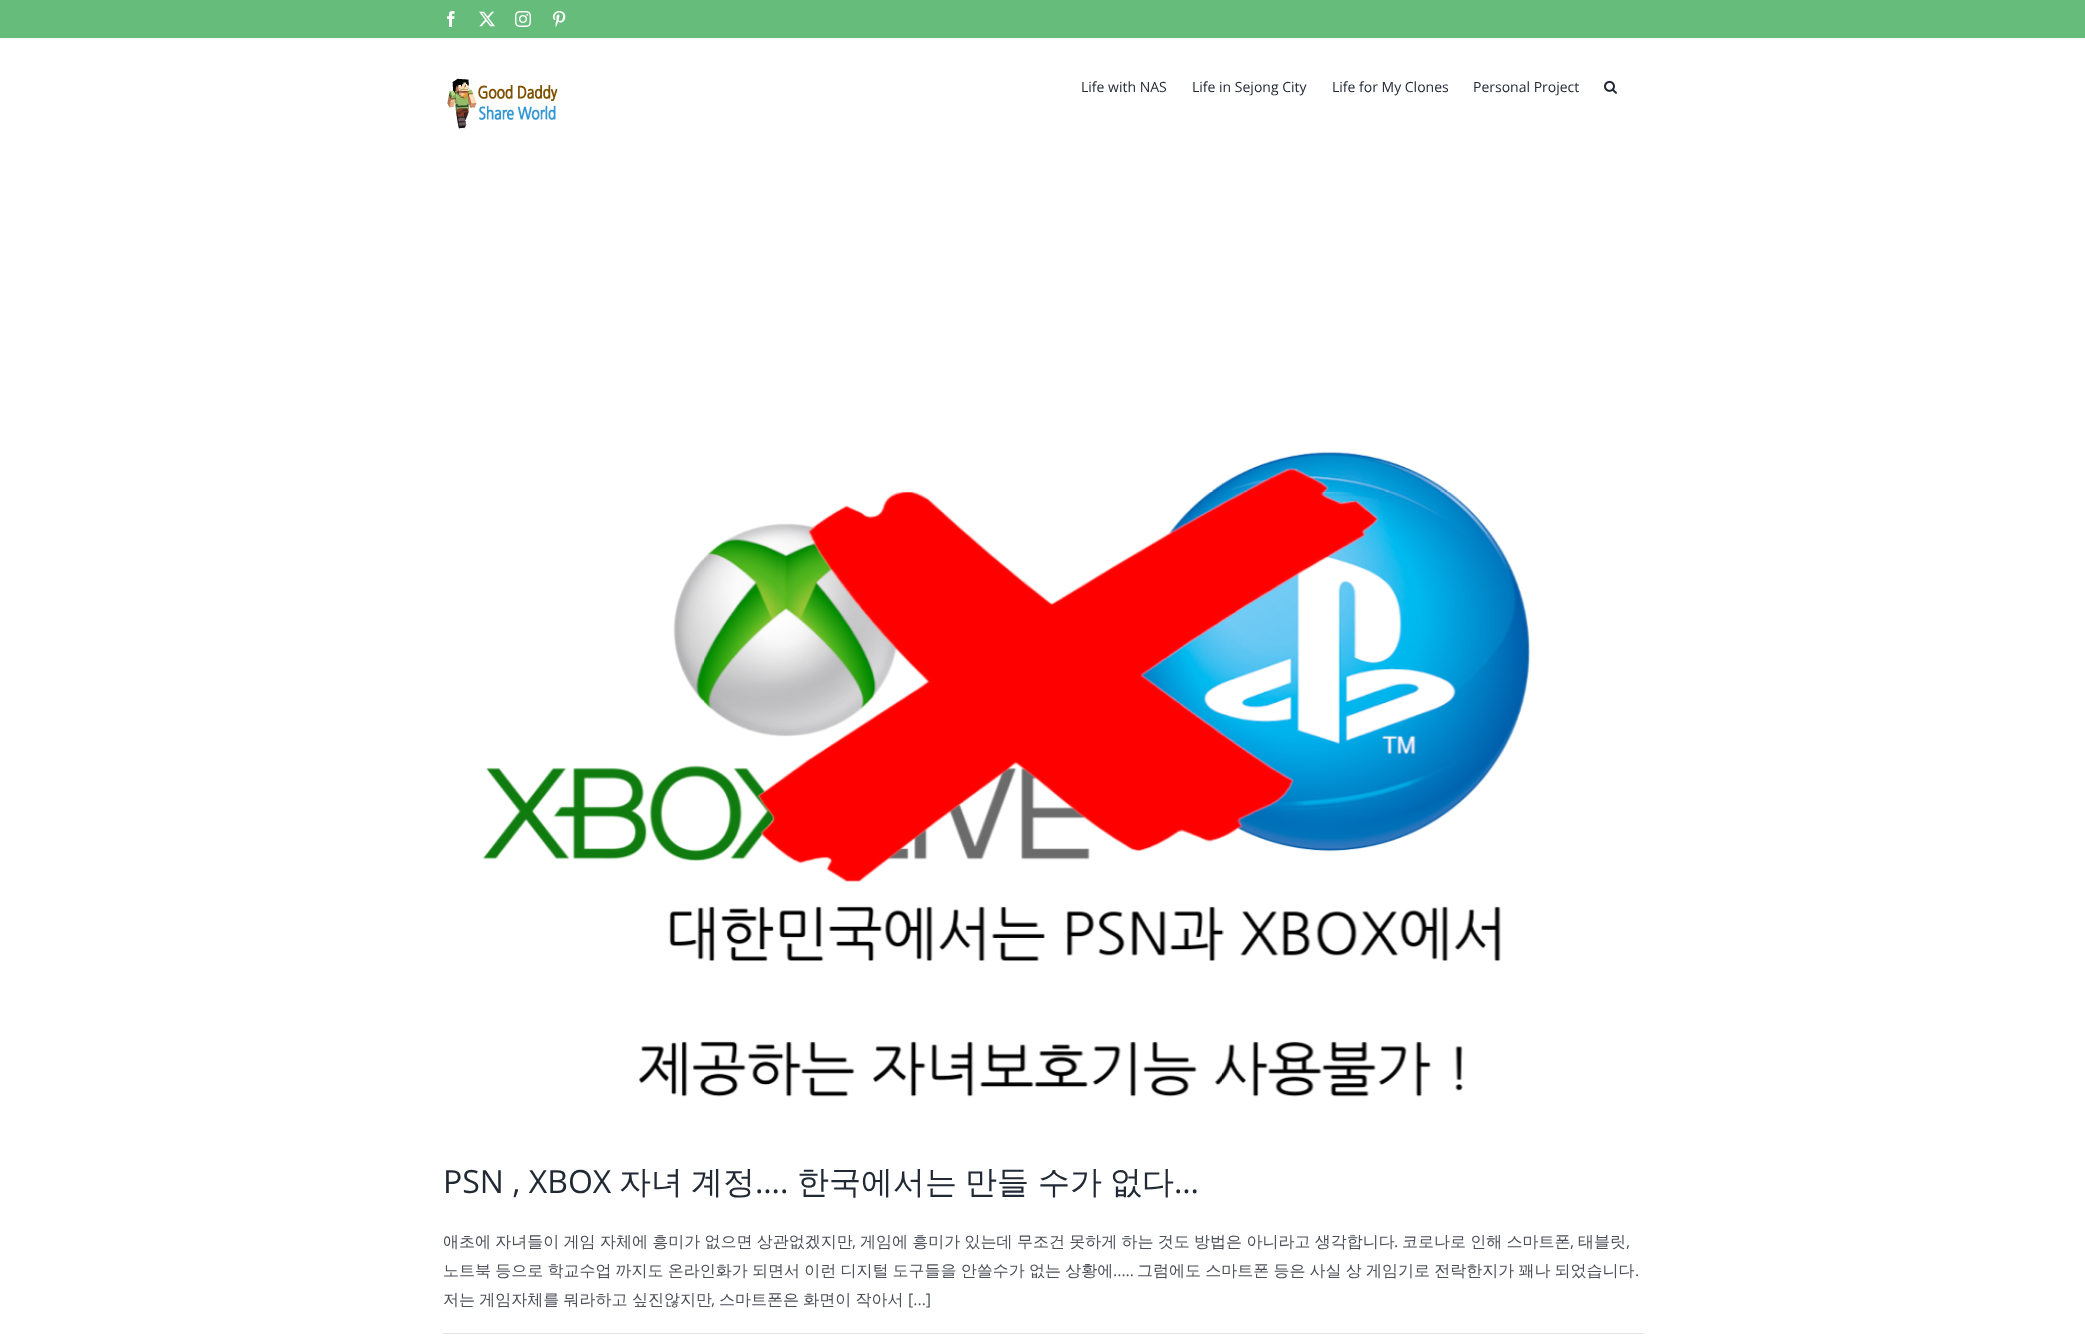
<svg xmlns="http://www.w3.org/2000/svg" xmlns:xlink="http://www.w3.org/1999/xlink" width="2085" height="1342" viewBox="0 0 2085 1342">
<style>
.cls-1{font:14px Open Sans;fill:#212934}
.cls-2{font:32px Open Sans;fill:#212934}
.cls-3{font:500 32px WenQuanYi Zen Hei;fill:#212934}
.cls-4{font:500 16px WenQuanYi Zen Hei;fill:#4a4e57}
.cls-5{font:16px Open Sans;fill:#4a4e57}
</style>
<rect width="100%" height="100%" fill="#ffffff"/>
<rect fill="#65bc7b" x="0" y="0" width="2085" height="38"/>
<image xlink:href="image0.png" x="447" y="11" width="8" height="16"/>
<image xlink:href="image1.png" x="479" y="11" width="16" height="16"/>
<image xlink:href="image2.png" x="515" y="11" width="16" height="16"/>
<image xlink:href="image3.png" x="552" y="11" width="14" height="16"/>
<image xlink:href="image4.png" x="447" y="78" width="111" height="52"/>
<image xlink:href="image5.png" x="1604" y="80" width="13" height="14"/>
<image xlink:href="image6.png" x="483" y="451" width="1047" height="646"/>
<rect fill="#e2e2e2" x="443" y="1333" width="1200" height="1"/>
<text class="cls-1" x="1081" y="92">Life with NAS</text>
<text class="cls-1" x="1192" y="92">Life in Sejong City</text>
<text class="cls-1" x="1332" y="92">Life for My Clones</text>
<text class="cls-1" x="1473" y="92">Personal Project</text>
<text class="cls-2" x="443" y="1193">PSN , XBOX</text>
<text class="cls-3" x="619" y="1193">자녀</text>
<text class="cls-3" x="691" y="1193">계정</text>
<text class="cls-2" x="755" y="1193">….</text>
<text class="cls-3" x="797" y="1193">한국에서는</text>
<text class="cls-3" x="965" y="1193">만들</text>
<text class="cls-3" x="1038" y="1193">수가</text>
<text class="cls-3" x="1110" y="1193">없다</text>
<text class="cls-2" x="1174" y="1193">…</text>
<text class="cls-4" x="443" y="1247" word-spacing="-0.5">애초에 자녀들이 게임 자체에 흥미가 없으면 상관없겠지만</text>
<text class="cls-5" x="852" y="1247">,</text>
<text class="cls-4" x="860" y="1247" word-spacing="-0.5">게임에 흥미가 있는데 무조건 못하게 하는 것도 방법은 아니라고 생각합니다</text>
<text class="cls-5" x="1394" y="1247">.</text>
<text class="cls-4" x="1402" y="1247" word-spacing="-0.5">코로나로 인해 스마트폰</text>
<text class="cls-5" x="1570" y="1247">,</text>
<text class="cls-4" x="1578" y="1247">태블릿</text>
<text class="cls-5" x="1626" y="1247">,</text>
<text class="cls-4" x="443" y="1276" word-spacing="-0.6">노트북 등으로 학교수업 까지도 온라인화가 되면서 이런 디지털 도구들을 안쓸수가 없는 상황에</text>
<text class="cls-5" x="1113" y="1276">.....</text>
<text class="cls-4" x="1137" y="1276" word-spacing="-0.6">그럼에도 스마트폰 등은 사실 상 게임기로 전락한지가 꽤나 되었습니다</text>
<text class="cls-5" x="1635" y="1276">.</text>
<text class="cls-4" x="443" y="1305" word-spacing="-0.5">저는 게임자체를 뭐라하고 싶진않지만</text>
<text class="cls-5" x="711" y="1305">,</text>
<text class="cls-4" x="719" y="1305" word-spacing="-0.5">스마트폰은 화면이 작아서</text>
<text class="cls-5" x="908" y="1305">[...]</text>
</svg>
